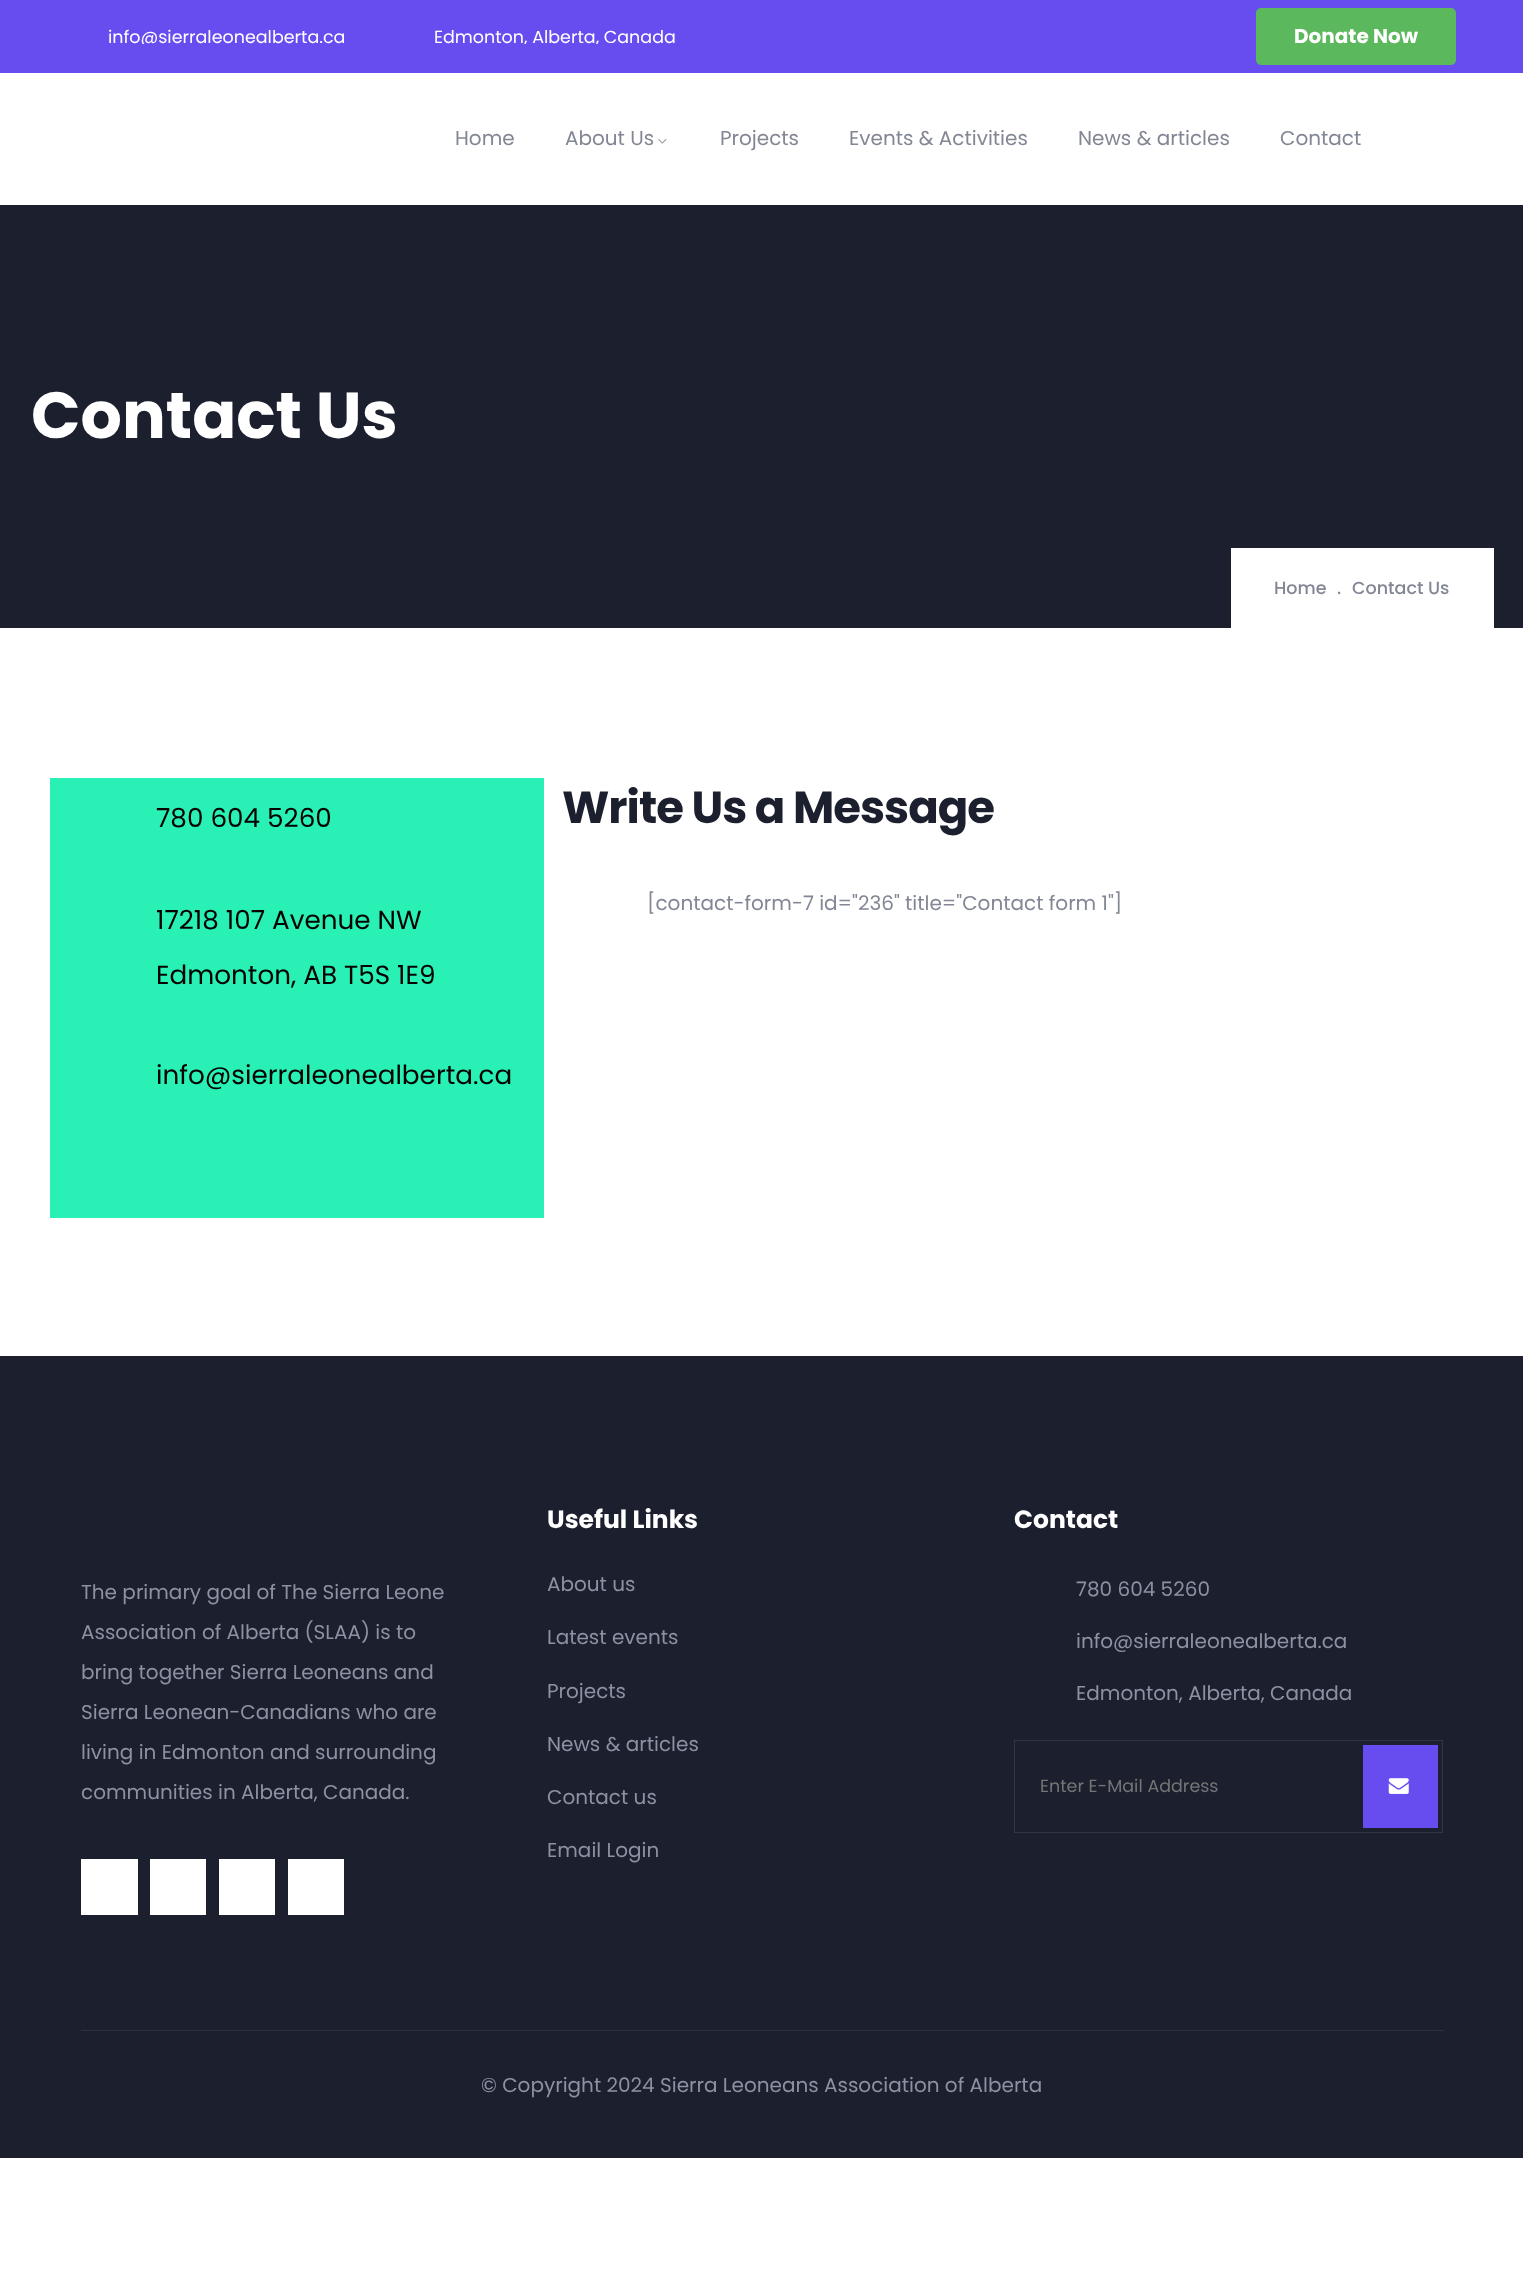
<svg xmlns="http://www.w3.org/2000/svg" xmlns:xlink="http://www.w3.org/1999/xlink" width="1523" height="2271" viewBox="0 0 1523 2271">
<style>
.cls-1{font:17.5px Poppins;fill:#ffffff}
.cls-2{font:bold 20px Poppins;fill:#ffffff}
.cls-3{font:20px Poppins;fill:#838694}
.cls-4{font:bold 65px Poppins;fill:#ffffff}
.cls-5{font:500 17.5px Poppins;fill:#838694}
.cls-6{font:26.25px Poppins;fill:#050101}
.cls-7{font:bold 45px Poppins;letter-spacing:-1px;fill:#1b1f2e}
.cls-8{font:20px Poppins;fill:#8d91a2}
.cls-9{font:bold 25px Poppins;fill:#ffffff}
.cls-10{font:17.5px Poppins;fill:#757575}
</style>
<defs>
<clipPath id="clip1"><rect x="69" y="29" width="675" height="15"/></clipPath>
</defs>
<rect width="100%" height="100%" fill="#ffffff"/>
<rect fill="#674df0" x="0" y="0" width="1523" height="73"/>
<rect fill="#5cb85c" x="1256" y="8" width="200" height="57" rx="5"/>
<image xlink:href="image0.png" x="658" y="139" width="9" height="5"/>
<rect fill="#1b1f2e" x="0" y="205" width="1523" height="423"/>
<rect fill="#ffffff" x="1231" y="548" width="263" height="80"/>
<rect fill="#29f0b4" x="50" y="778" width="494" height="440"/>
<rect fill="#1b1f2e" x="0" y="1356" width="1523" height="802"/>
<rect fill="#ffffff" x="81" y="1859" width="57" height="56"/>
<rect fill="#ffffff" x="150" y="1859" width="56" height="56"/>
<rect fill="#ffffff" x="219" y="1859" width="56" height="56"/>
<rect fill="#ffffff" x="288" y="1859" width="56" height="56"/>
<rect fill="none" stroke="#323643" x="1014.5" y="1740.5" width="428" height="92"/>
<rect fill="#674df0" x="1363" y="1745" width="75" height="83"/>
<image xlink:href="image1.png" x="1388" y="1778" width="21" height="16"/>
<rect fill="#2d313e" x="81" y="2030" width="1363" height="1"/>
<g clip-path="url(#clip1)">
<text class="cls-1" x="108" y="43">info@sierraleonealberta.ca</text>
<text class="cls-1" x="434" y="43">Edmonton, Alberta, Canada</text>
</g>
<text class="cls-2" x="1294" y="43">Donate Now</text>
<text class="cls-3" x="455" y="145">Home</text>
<text class="cls-3" x="565" y="145">About Us</text>
<text class="cls-3" x="720" y="145">Projects</text>
<text class="cls-3" x="849" y="145">Events &amp; Activities</text>
<text class="cls-3" x="1078" y="145">News &amp; articles</text>
<text class="cls-3" x="1280" y="145">Contact</text>
<text class="cls-4" x="31" y="438">Contact Us</text>
<text class="cls-5" x="1274" y="594">Home</text>
<text class="cls-5" x="1337" y="594">.</text>
<text class="cls-5" x="1352" y="594">Contact Us</text>
<text class="cls-6" x="156" y="827">780 604 5260</text>
<text class="cls-6" x="156" y="929">17218 107 Avenue NW</text>
<text class="cls-6" x="156" y="984">Edmonton, AB T5S 1E9</text>
<text class="cls-6" x="156" y="1084">info@sierraleonealberta.ca</text>
<text class="cls-7" x="562" y="823">Write Us a Message</text>
<text class="cls-3" x="647" y="910">[contact-form-7 id="236" title="Contact form 1"]</text>
<text class="cls-8" x="81" y="1599">The primary goal of The Sierra Leone</text>
<text class="cls-8" x="81" y="1639">Association of Alberta (SLAA) is to</text>
<text class="cls-8" x="81" y="1679">bring together Sierra Leoneans and</text>
<text class="cls-8" x="81" y="1719">Sierra Leonean-Canadians who are</text>
<text class="cls-8" x="81" y="1759">living in Edmonton and surrounding</text>
<text class="cls-8" x="81" y="1799">communities in Alberta, Canada.</text>
<text class="cls-9" x="547" y="1528">Useful Links</text>
<text class="cls-8" x="547" y="1591">About us</text>
<text class="cls-8" x="547" y="1644">Latest events</text>
<text class="cls-8" x="547" y="1698">Projects</text>
<text class="cls-8" x="547" y="1751">News &amp; articles</text>
<text class="cls-8" x="547" y="1804">Contact us</text>
<text class="cls-8" x="547" y="1857">Email Login</text>
<text class="cls-9" x="1014" y="1528">Contact</text>
<text class="cls-8" x="1076" y="1596">780 604 5260</text>
<text class="cls-8" x="1076" y="1648">info@sierraleonealberta.ca</text>
<text class="cls-8" x="1076" y="1700">Edmonton, Alberta, Canada</text>
<text class="cls-10" x="1040" y="1792">Enter E-Mail Address</text>
<text class="cls-8" x="481" y="2092">© Copyright 2024 Sierra Leoneans Association of Alberta</text>
</svg>
